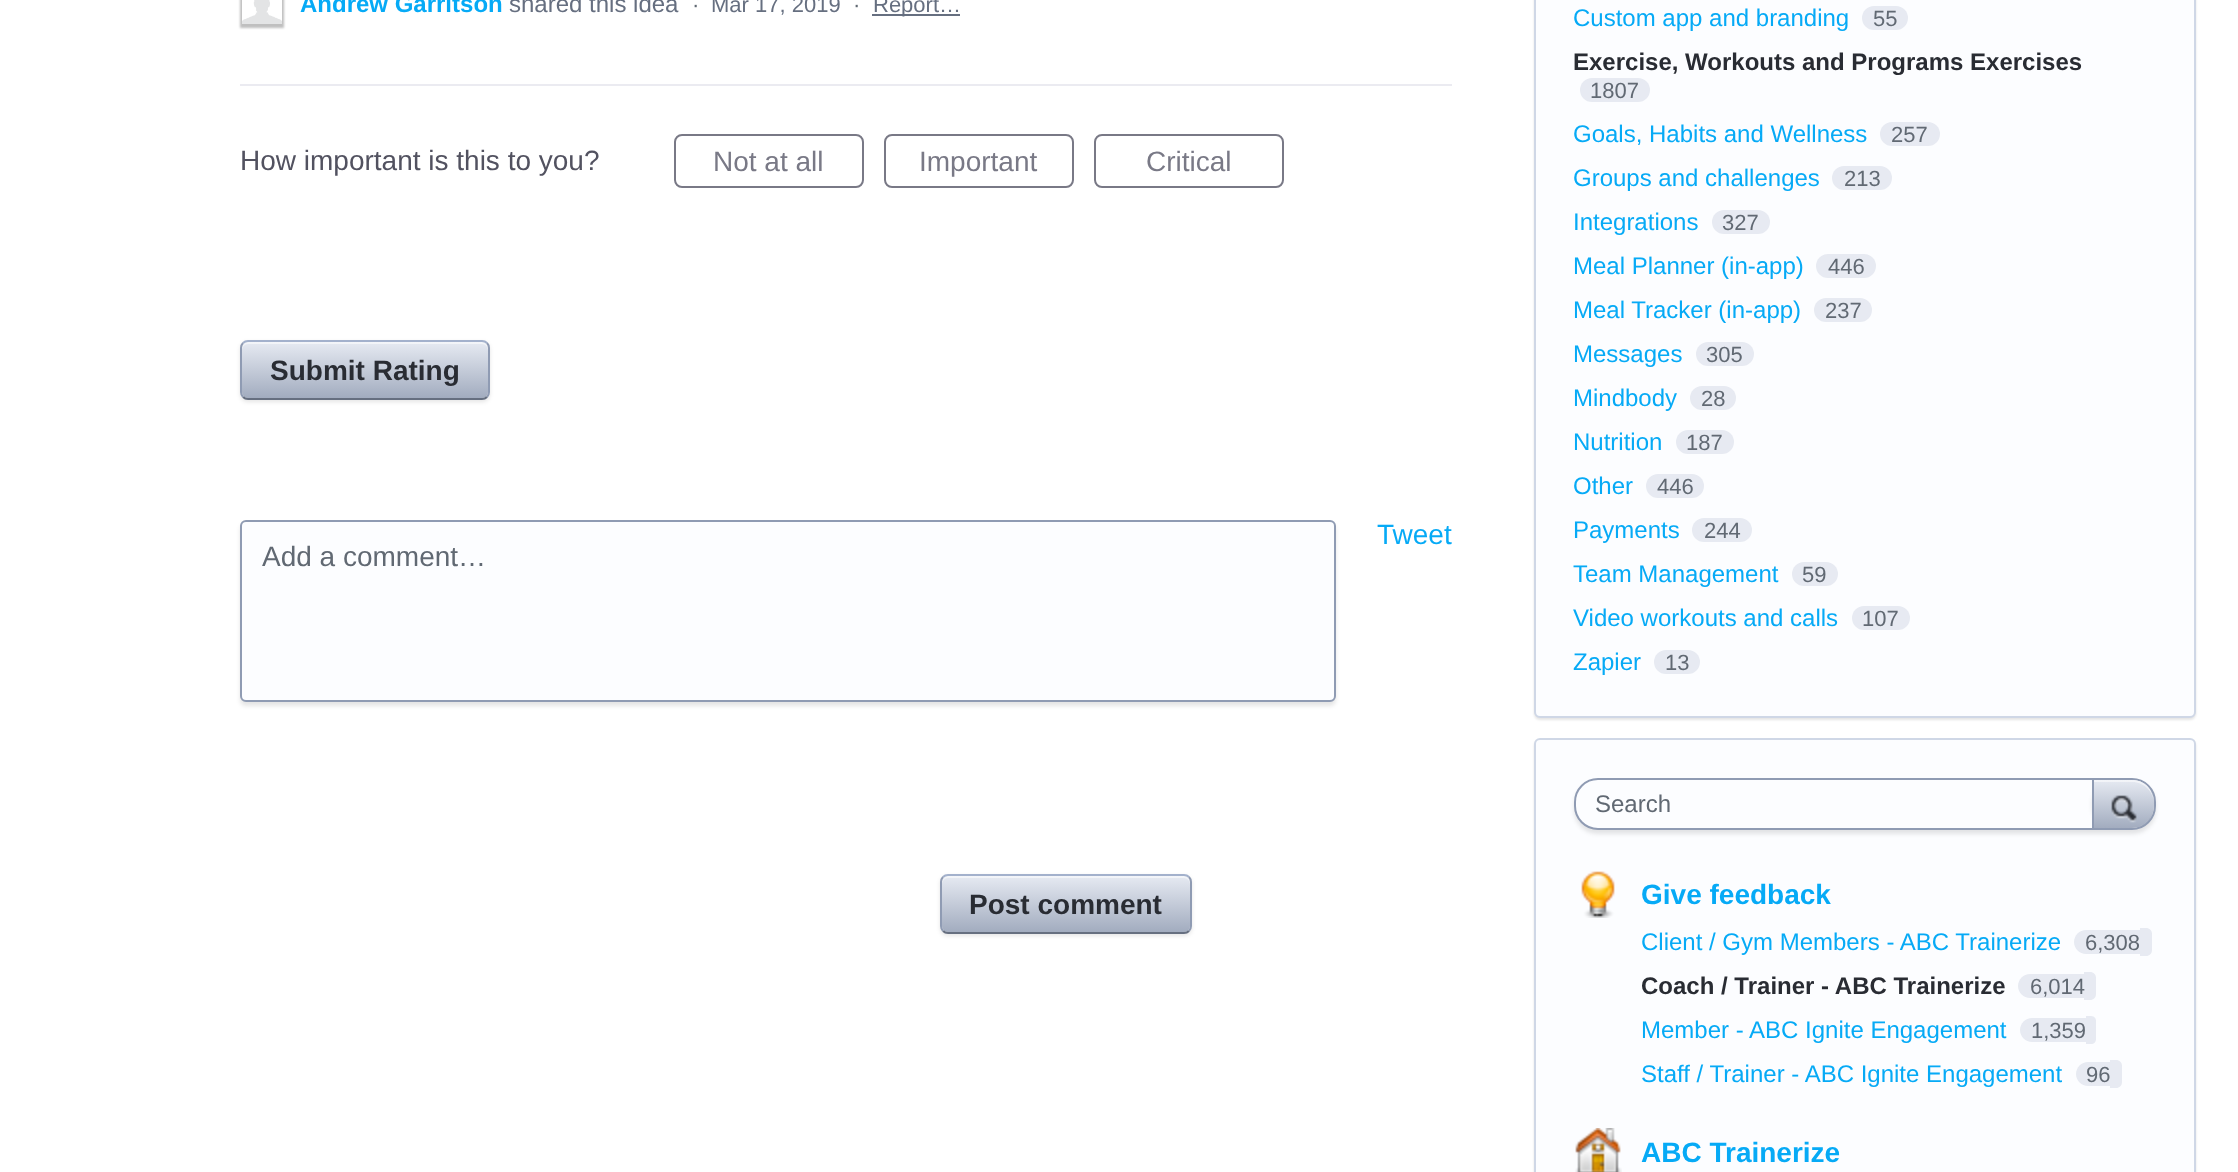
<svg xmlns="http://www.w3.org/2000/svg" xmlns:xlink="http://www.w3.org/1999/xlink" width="2238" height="1172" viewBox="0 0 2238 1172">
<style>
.cls-1{font:bold 24px Liberation Sans;fill:#06aaf6}
.cls-2{font:24px Liberation Sans;fill:#666f80}
.cls-3{font:22px Liberation Sans;fill:#616973}
.cls-4{font:22px Liberation Sans;fill:#666f80}
.cls-5{font:28px Liberation Sans;fill:#525260}
.cls-6{font:28px Liberation Sans;fill:#797986}
.cls-7{font:bold 28px Liberation Sans;fill:#292c33}
.cls-8{font:28px Liberation Sans;fill:#06aaf6}
.cls-9{font:28px Liberation Sans;fill:#616973}
.cls-10{font:24px Liberation Sans;fill:#06aaf6}
.cls-11{font:bold 24px Liberation Sans;fill:#292c33}
.cls-12{font:24px Liberation Sans;fill:#616973}
.cls-13{font:bold 28px Liberation Sans;fill:#06aaf6}
</style>
<defs>
<linearGradient id="g1" gradientUnits="userSpaceOnUse" x1="242" y1="342" x2="242" y2="398"><stop offset="0" stop-color="#e6eaf2"/><stop offset="1" stop-color="#a2acbf"/></linearGradient>
<linearGradient id="g2" gradientUnits="userSpaceOnUse" x1="942" y1="876" x2="942" y2="932"><stop offset="0" stop-color="#e6eaf2"/><stop offset="1" stop-color="#a2acbf"/></linearGradient>
<clipPath id="clip1"><rect x="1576" y="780" width="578" height="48" rx="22"/></clipPath>
<linearGradient id="g3" gradientUnits="userSpaceOnUse" x1="2094" y1="780" x2="2094" y2="828"><stop offset="0" stop-color="#e6eaf2"/><stop offset="1" stop-color="#a2acbf"/></linearGradient>
</defs>
<rect width="100%" height="100%" fill="#ffffff"/>
<rect fill="#000000" fill-opacity="0.25" filter="blur(1px)" x="240" y="-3" width="44" height="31"/>
<image xlink:href="image0.png" x="242" y="0" width="40" height="24"/>
<rect fill="#666f80" x="872" y="14" width="88" height="2"/>
<rect fill="#ebebf1" x="240" y="84" width="1212" height="2"/>
<rect fill="none" stroke="#797986" stroke-width="2" x="675" y="135" width="188" height="52" rx="7"/>
<rect fill="none" stroke="#797986" stroke-width="2" x="885" y="135" width="188" height="52" rx="7"/>
<rect fill="none" stroke="#797986" stroke-width="2" x="1095" y="135" width="188" height="52" rx="7"/>
<rect fill="#000000" fill-opacity="0.1" filter="blur(2px)" x="240" y="342" width="250" height="60" rx="8"/>
<rect fill="url(#g1)" x="242" y="342" width="246" height="56" rx="6"/>
<path fill="#ffffff" fill-opacity="0.5" d="M248 344H482C485 344 488 347 488 350V348C488 345 485 342 482 342H248C245 342 242 345 242 348V350C242 347 245 344 248 344Z"/>
<path fill="none" stroke="#a3b1cc" stroke-width="2" d="M243 343C244.5 341.5 246 341 248 341H482C484 341 485.5 341.5 487 343"/>
<path fill="none" stroke="#8f9bb3" stroke-width="2" d="M487 343C488.5 344.5 489 346 489 348V392C489 394 488.5 395.5 487 397"/>
<path fill="none" stroke="#666f80" stroke-width="2" d="M487 397C485.5 398.5 484 399 482 399H248C246 399 244.5 398.5 243 397"/>
<path fill="none" stroke="#8f9bb3" stroke-width="2" d="M243 397C241.5 395.5 241 394 241 392V348C241 346 241.5 344.5 243 343"/>
<rect fill="#000000" fill-opacity="0.1" filter="blur(2px)" x="240" y="524" width="1096" height="182" rx="6"/>
<rect fill="#fcfdff" stroke="#8f9bb3" stroke-width="2" x="241" y="521" width="1094" height="180" rx="5"/>
<rect fill="#000000" fill-opacity="0.1" filter="blur(2px)" x="940" y="876" width="252" height="60" rx="8"/>
<rect fill="url(#g2)" x="942" y="876" width="248" height="56" rx="6"/>
<path fill="#ffffff" fill-opacity="0.5" d="M948 878H1184C1187 878 1190 881 1190 884V882C1190 879 1187 876 1184 876H948C945 876 942 879 942 882V884C942 881 945 878 948 878Z"/>
<path fill="none" stroke="#a3b1cc" stroke-width="2" d="M943 877C944.5 875.5 946 875 948 875H1184C1186 875 1187.5 875.5 1189 877"/>
<path fill="none" stroke="#8f9bb3" stroke-width="2" d="M1189 877C1190.5 878.5 1191 880 1191 882V926C1191 928 1190.5 929.5 1189 931"/>
<path fill="none" stroke="#666f80" stroke-width="2" d="M1189 931C1187.5 932.5 1186 933 1184 933H948C946 933 944.5 932.5 943 931"/>
<path fill="none" stroke="#8f9bb3" stroke-width="2" d="M943 931C941.5 929.5 941 928 941 926V882C941 880 941.5 878.5 943 877"/>
<rect fill="#000000" fill-opacity="0.1" filter="blur(1px)" x="1534" y="-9" width="662" height="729" rx="6"/>
<rect fill="#fcfdff" stroke="#cfd7e6" stroke-width="2" x="1535" y="-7" width="660" height="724" rx="5"/>
<rect fill="#e7eaf2" x="1862" y="6" width="46" height="24" rx="12"/>
<rect fill="#e7eaf2" x="1580" y="78" width="70" height="24" rx="12"/>
<rect fill="#e7eaf2" x="1880" y="122" width="60" height="24" rx="12"/>
<rect fill="#e7eaf2" x="1832" y="166" width="60" height="24" rx="12"/>
<rect fill="#e7eaf2" x="1712" y="210" width="58" height="24" rx="12"/>
<rect fill="#e7eaf2" x="1816" y="254" width="60" height="24" rx="12"/>
<rect fill="#e7eaf2" x="1814" y="298" width="58" height="24" rx="12"/>
<rect fill="#e7eaf2" x="1696" y="342" width="58" height="24" rx="12"/>
<rect fill="#e7eaf2" x="1690" y="386" width="46" height="24" rx="12"/>
<rect fill="#e7eaf2" x="1676" y="430" width="58" height="24" rx="12"/>
<rect fill="#e7eaf2" x="1646" y="474" width="58" height="24" rx="12"/>
<rect fill="#e7eaf2" x="1692" y="518" width="60" height="24" rx="12"/>
<rect fill="#e7eaf2" x="1792" y="562" width="46" height="24" rx="12"/>
<rect fill="#e7eaf2" x="1852" y="606" width="58" height="24" rx="12"/>
<rect fill="#e7eaf2" x="1654" y="650" width="46" height="24" rx="12"/>
<rect fill="#000000" fill-opacity="0.1" filter="blur(1px)" x="1534" y="740" width="662" height="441" rx="6"/>
<rect fill="#fcfdff" stroke="#cfd7e6" stroke-width="2" x="1535" y="739" width="660" height="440" rx="5"/>
<rect fill="#000000" fill-opacity="0.1" filter="blur(2px)" x="1574" y="782" width="582" height="52" rx="24"/>
<rect fill="#fcfdff" stroke="#8f9bb3" stroke-width="2" x="1575" y="779" width="580" height="50" rx="23"/>
<g clip-path="url(#clip1)">
<rect fill="#000000" fill-opacity="0.1" filter="blur(2px)" x="2092" y="780" width="64" height="50" rx="24"/>
</g>
<path fill="url(#g3)" d="M2094 780H2132C2144 780 2154 790 2154 802V804C2154 817 2144 828 2132 828H2094Z"/>
<path fill="#ffffff" fill-opacity="0.5" d="M2094 780V782H2132C2144 782 2154 792 2154 804C2154 791 2146 780 2132 780Z"/>
<path fill="#8f9bb3" fill-rule="evenodd" d="M2154 804C2154 817 2146 828 2132 828C2144 828 2154 817 2154 804ZM2148 786C2151 790 2154 796 2154 802C2154 796 2152 790 2148 786Z"/>
<rect fill="#8f9bb3" x="2092" y="780" width="2" height="48"/>
<image xlink:href="image1.png" x="2111" y="795" width="26" height="28"/>
<image xlink:href="image2.png" x="1581" y="871" width="34" height="47"/>
<path fill="#e7eaf2" d="M2086 930H2140V954H2086C2079.5 954 2074 948.5 2074 942C2074 935.5 2079.5 930 2086 930Z"/>
<path fill="#e7eaf2" d="M2140 928H2146C2149.5 928 2152 930.5 2152 934V950C2152 953.5 2149.5 956 2146 956H2140Z"/>
<path fill="#e7eaf2" d="M2030 974H2084V998H2030C2023.5 998 2018 992.5 2018 986C2018 979.5 2023.5 974 2030 974Z"/>
<path fill="#e7eaf2" d="M2084 972H2090C2093.5 972 2096 974.5 2096 978V994C2096 997.5 2093.5 1000 2090 1000H2084Z"/>
<path fill="#e7eaf2" d="M2032 1018H2086V1042H2032C2025.5 1042 2020 1036.5 2020 1030C2020 1023.5 2025.5 1018 2032 1018Z"/>
<path fill="#e7eaf2" d="M2086 1016H2091C2094 1016 2096 1018 2096 1021V1039C2096 1042 2094 1044 2091 1044H2086Z"/>
<path fill="#e7eaf2" d="M2088 1062H2110V1086H2088C2081.5 1086 2076 1080.5 2076 1074C2076 1067.5 2081.5 1062 2088 1062Z"/>
<path fill="#e7eaf2" d="M2110 1060H2116C2119.5 1060 2122 1062.5 2122 1066V1082C2122 1085.5 2119.5 1088 2116 1088H2110Z"/>
<image xlink:href="image3.png" x="1575" y="1128" width="47" height="44"/>
<text class="cls-1" x="300" y="12">Andrew Garritson</text>
<text class="cls-2" x="509" y="12">shared this idea</text>
<text class="cls-3" x="692" y="12">·</text>
<text class="cls-4" x="711" y="12">Mar 17, 2019</text>
<text class="cls-3" x="853" y="12">·</text>
<text class="cls-4" x="873" y="12">Report…</text>
<text class="cls-5" x="240" y="170">How important is this to you?</text>
<text class="cls-6" x="713" y="171">Not at all</text>
<text class="cls-6" x="919" y="171">Important</text>
<text class="cls-6" x="1146" y="171">Critical</text>
<text class="cls-7" x="270" y="380">Submit Rating</text>
<text class="cls-8" x="1377" y="544">Tweet</text>
<text class="cls-9" x="262" y="566">Add a comment…</text>
<text class="cls-7" x="969" y="914">Post comment</text>
<text class="cls-10" x="1573" y="26">Custom app and branding</text>
<text class="cls-3" x="1873" y="26">55</text>
<text class="cls-11" x="1573" y="70">Exercise, Workouts and Programs Exercises</text>
<text class="cls-3" x="1590" y="98">1807</text>
<text class="cls-10" x="1573" y="142">Goals, Habits and Wellness</text>
<text class="cls-3" x="1891" y="142">257</text>
<text class="cls-10" x="1573" y="186">Groups and challenges</text>
<text class="cls-3" x="1844" y="186">213</text>
<text class="cls-10" x="1573" y="230">Integrations</text>
<text class="cls-3" x="1722" y="230">327</text>
<text class="cls-10" x="1573" y="274">Meal Planner (in-app)</text>
<text class="cls-3" x="1828" y="274">446</text>
<text class="cls-10" x="1573" y="318">Meal Tracker (in-app)</text>
<text class="cls-3" x="1825" y="318">237</text>
<text class="cls-10" x="1573" y="362">Messages</text>
<text class="cls-3" x="1706" y="362">305</text>
<text class="cls-10" x="1573" y="406">Mindbody</text>
<text class="cls-3" x="1701" y="406">28</text>
<text class="cls-10" x="1573" y="450">Nutrition</text>
<text class="cls-3" x="1686" y="450">187</text>
<text class="cls-10" x="1573" y="494">Other</text>
<text class="cls-3" x="1657" y="494">446</text>
<text class="cls-10" x="1573" y="538">Payments</text>
<text class="cls-3" x="1704" y="538">244</text>
<text class="cls-10" x="1573" y="582">Team Management</text>
<text class="cls-3" x="1802" y="582">59</text>
<text class="cls-10" x="1573" y="626">Video workouts and calls</text>
<text class="cls-3" x="1862" y="626">107</text>
<text class="cls-10" x="1573" y="670">Zapier</text>
<text class="cls-3" x="1665" y="670">13</text>
<text class="cls-12" x="1595" y="812">Search</text>
<text class="cls-13" x="1641" y="904">Give feedback</text>
<text class="cls-10" x="1641" y="950">Client / Gym Members - ABC Trainerize</text>
<text class="cls-3" x="2085" y="950">6,308</text>
<text class="cls-11" x="1641" y="994">Coach / Trainer - ABC Trainerize</text>
<text class="cls-3" x="2030" y="994">6,014</text>
<text class="cls-10" x="1641" y="1038">Member - ABC Ignite Engagement</text>
<text class="cls-3" x="2031" y="1038">1,359</text>
<text class="cls-10" x="1641" y="1082">Staff / Trainer - ABC Ignite Engagement</text>
<text class="cls-3" x="2086" y="1082">96</text>
<text class="cls-13" x="1641" y="1162">ABC Trainerize</text>
</svg>
